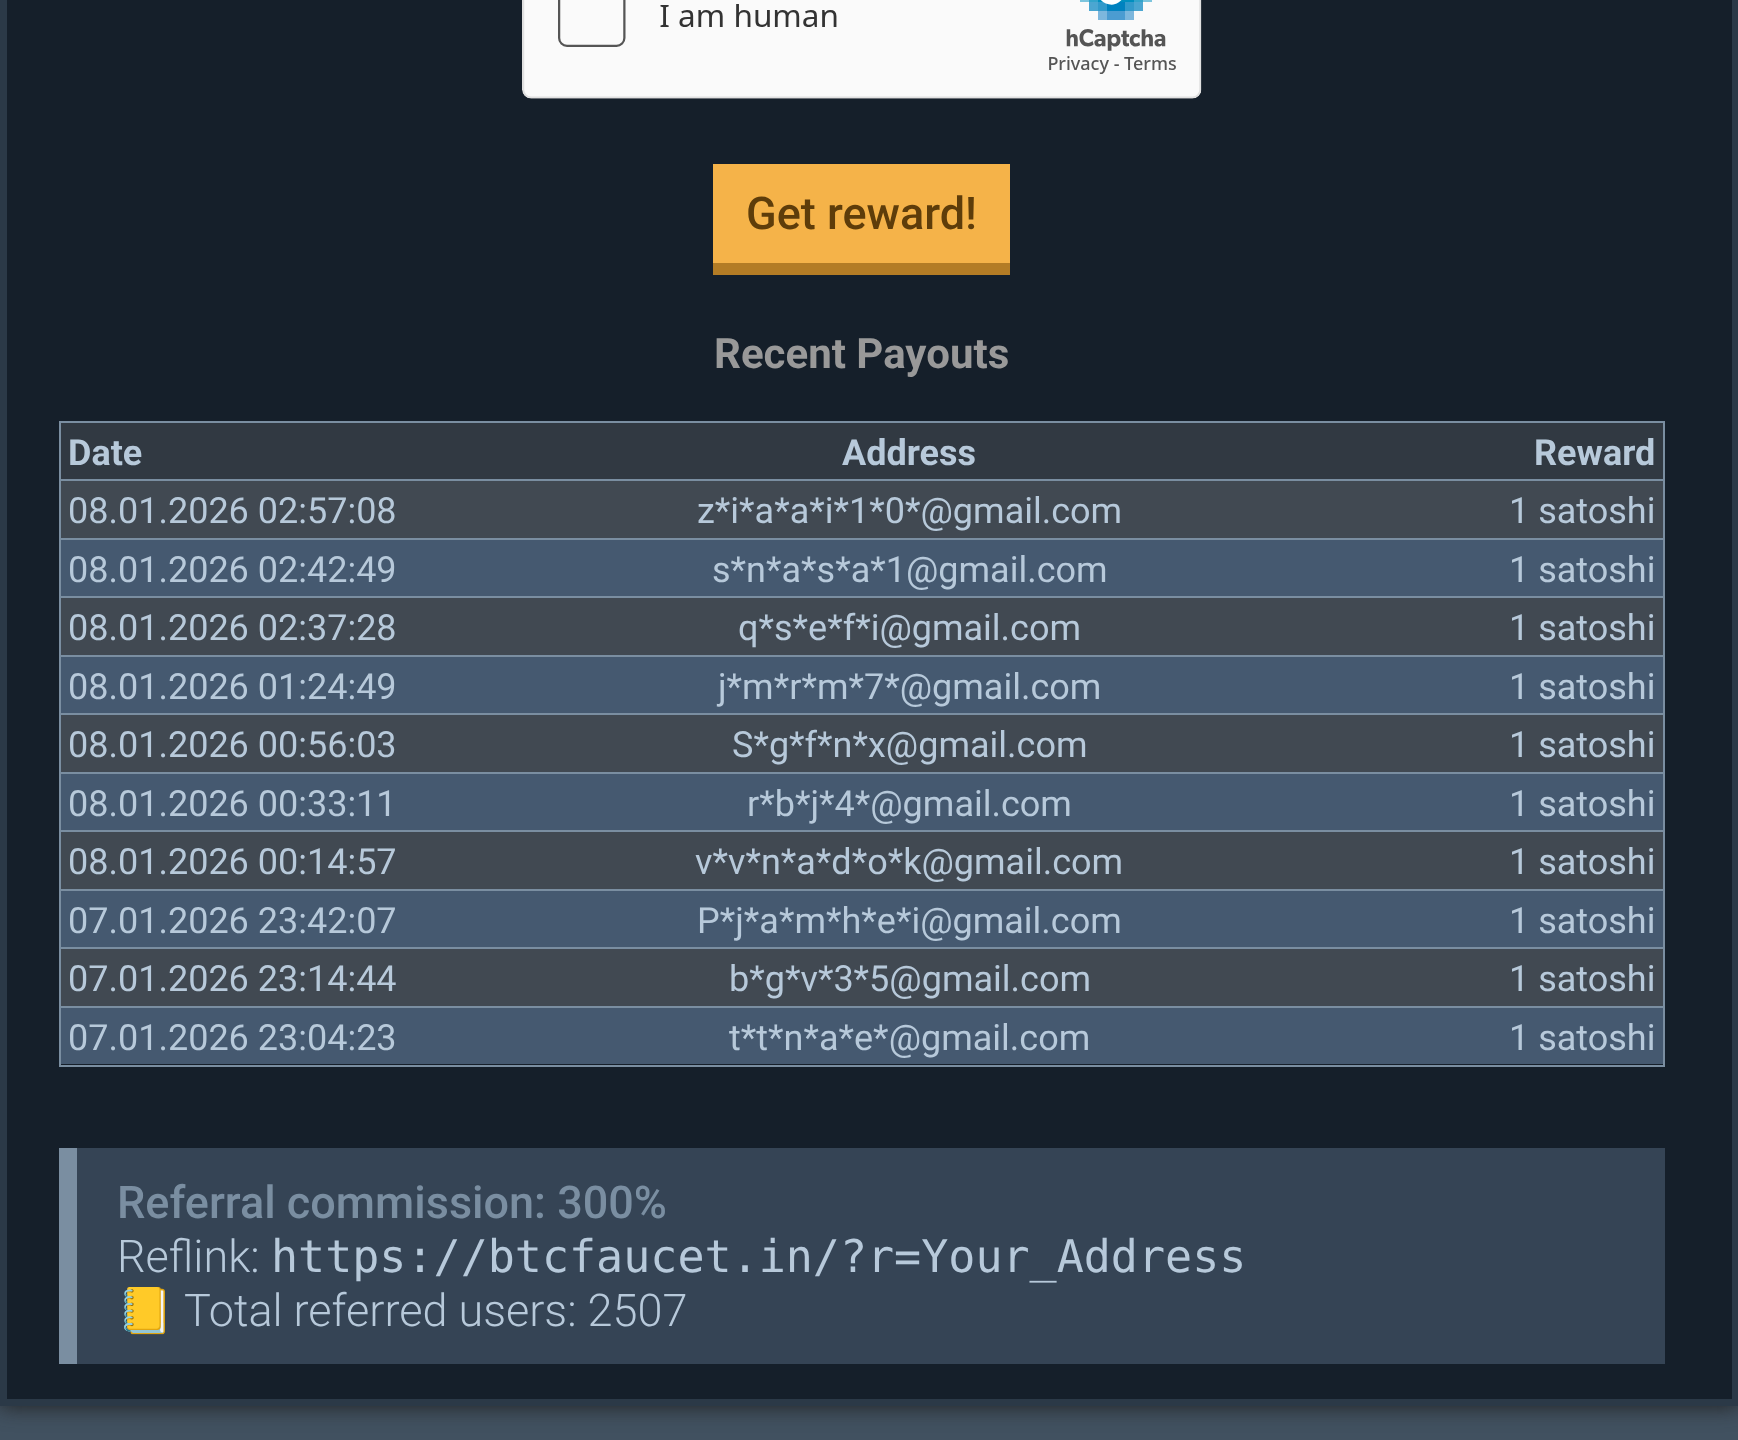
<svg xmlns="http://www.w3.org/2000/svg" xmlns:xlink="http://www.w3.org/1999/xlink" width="1738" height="1440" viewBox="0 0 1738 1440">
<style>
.cls-1{font:500 45px Roboto;fill:#5e3d0a}
.cls-2{font:bold 42px Roboto;fill:#999999}
.cls-3{font:bold 36px Roboto;fill:#b7c9da}
.cls-4{font:36px Roboto;fill:#b7c9da}
.cls-5{font:500 45px Roboto;fill:#7a8ea1}
.cls-6{font:300 45px Roboto;fill:#b7c9da}
.cls-7{font:45px DejaVu Sans Mono;fill:#b7c9da}
.cls-8{font:45px Noto Color Emoji;fill:#b7c9da}
</style>
<rect width="100%" height="100%" fill="#415160"/>
<rect fill="#1f1f1f" filter="blur(11px)" x="0" y="-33" width="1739" height="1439"/>
<rect fill="#151f2a" stroke="#2b3947" stroke-width="7" x="3.5" y="-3.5" width="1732" height="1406"/>
<image xlink:href="image0.png" x="522" y="0" width="680" height="99"/>
<rect fill="#f5b349" x="713" y="164" width="297" height="99"/>
<rect fill="#b37c25" x="713" y="263" width="297" height="12"/>
<rect fill="none" stroke="#7a8ea1" stroke-width="2" x="60" y="422" width="1604" height="644"/>
<rect fill="#313942" x="61" y="423" width="448" height="56"/>
<rect fill="#313942" x="509" y="423" width="1154" height="56"/>
<rect fill="#414952" x="61" y="481" width="448" height="57"/>
<rect fill="#7a8ea1" x="61" y="479" width="448" height="2"/>
<rect fill="#414952" x="509" y="481" width="1154" height="57"/>
<rect fill="#7a8ea1" x="509" y="479" width="1154" height="2"/>
<rect fill="#455970" x="61" y="540" width="448" height="56"/>
<rect fill="#7a8ea1" x="61" y="538" width="448" height="2"/>
<rect fill="#455970" x="509" y="540" width="1154" height="56"/>
<rect fill="#7a8ea1" x="509" y="538" width="1154" height="2"/>
<rect fill="#414952" x="61" y="598" width="448" height="57"/>
<rect fill="#7a8ea1" x="61" y="596" width="448" height="2"/>
<rect fill="#414952" x="509" y="598" width="1154" height="57"/>
<rect fill="#7a8ea1" x="509" y="596" width="1154" height="2"/>
<rect fill="#455970" x="61" y="657" width="448" height="56"/>
<rect fill="#7a8ea1" x="61" y="655" width="448" height="2"/>
<rect fill="#455970" x="509" y="657" width="1154" height="56"/>
<rect fill="#7a8ea1" x="509" y="655" width="1154" height="2"/>
<rect fill="#414952" x="61" y="715" width="448" height="57"/>
<rect fill="#7a8ea1" x="61" y="713" width="448" height="2"/>
<rect fill="#414952" x="509" y="715" width="1154" height="57"/>
<rect fill="#7a8ea1" x="509" y="713" width="1154" height="2"/>
<rect fill="#455970" x="61" y="774" width="448" height="56"/>
<rect fill="#7a8ea1" x="61" y="772" width="448" height="2"/>
<rect fill="#455970" x="509" y="774" width="1154" height="56"/>
<rect fill="#7a8ea1" x="509" y="772" width="1154" height="2"/>
<rect fill="#414952" x="61" y="832" width="448" height="57"/>
<rect fill="#7a8ea1" x="61" y="830" width="448" height="2"/>
<rect fill="#414952" x="509" y="832" width="1154" height="57"/>
<rect fill="#7a8ea1" x="509" y="830" width="1154" height="2"/>
<rect fill="#455970" x="61" y="891" width="448" height="56"/>
<rect fill="#7a8ea1" x="61" y="889" width="448" height="2"/>
<rect fill="#455970" x="509" y="891" width="1154" height="56"/>
<rect fill="#7a8ea1" x="509" y="889" width="1154" height="2"/>
<rect fill="#414952" x="61" y="949" width="448" height="57"/>
<rect fill="#7a8ea1" x="61" y="947" width="448" height="2"/>
<rect fill="#414952" x="509" y="949" width="1154" height="57"/>
<rect fill="#7a8ea1" x="509" y="947" width="1154" height="2"/>
<rect fill="#455970" x="61" y="1008" width="448" height="56"/>
<rect fill="#7a8ea1" x="61" y="1006" width="448" height="2"/>
<rect fill="#455970" x="509" y="1008" width="1154" height="56"/>
<rect fill="#7a8ea1" x="509" y="1006" width="1154" height="2"/>
<rect fill="#354455" x="77" y="1148" width="1588" height="216"/>
<rect fill="#7a8ea1" x="59" y="1148" width="18" height="216"/>
<text class="cls-1" x="746" y="229">Get reward!</text>
<text class="cls-2" x="714" y="368">Recent Payouts</text>
<text class="cls-3" x="68" y="465">Date</text>
<text class="cls-3" x="842" y="465">Address</text>
<text class="cls-3" x="1534" y="465">Reward</text>
<text class="cls-4" x="68" y="523">08.01.2026 02:57:08</text>
<text class="cls-4" x="697" y="523">z*i*a*a*i*1*0*@gmail.com</text>
<text class="cls-4" x="1509" y="523">1 satoshi</text>
<text class="cls-4" x="68" y="582">08.01.2026 02:42:49</text>
<text class="cls-4" x="712" y="582">s*n*a*s*a*1@gmail.com</text>
<text class="cls-4" x="1509" y="582">1 satoshi</text>
<text class="cls-4" x="68" y="640">08.01.2026 02:37:28</text>
<text class="cls-4" x="738" y="640">q*s*e*f*i@gmail.com</text>
<text class="cls-4" x="1509" y="640">1 satoshi</text>
<text class="cls-4" x="68" y="699">08.01.2026 01:24:49</text>
<text class="cls-4" x="718" y="699">j*m*r*m*7*@gmail.com</text>
<text class="cls-4" x="1509" y="699">1 satoshi</text>
<text class="cls-4" x="68" y="757">08.01.2026 00:56:03</text>
<text class="cls-4" x="732" y="757">S*g*f*n*x@gmail.com</text>
<text class="cls-4" x="1509" y="757">1 satoshi</text>
<text class="cls-4" x="68" y="816">08.01.2026 00:33:11</text>
<text class="cls-4" x="747" y="816">r*b*j*4*@gmail.com</text>
<text class="cls-4" x="1509" y="816">1 satoshi</text>
<text class="cls-4" x="68" y="874">08.01.2026 00:14:57</text>
<text class="cls-4" x="695" y="874">v*v*n*a*d*o*k@gmail.com</text>
<text class="cls-4" x="1509" y="874">1 satoshi</text>
<text class="cls-4" x="68" y="933">07.01.2026 23:42:07</text>
<text class="cls-4" x="697" y="933">P*j*a*m*h*e*i@gmail.com</text>
<text class="cls-4" x="1509" y="933">1 satoshi</text>
<text class="cls-4" x="68" y="991">07.01.2026 23:14:44</text>
<text class="cls-4" x="729" y="991">b*g*v*3*5@gmail.com</text>
<text class="cls-4" x="1509" y="991">1 satoshi</text>
<text class="cls-4" x="68" y="1050">07.01.2026 23:04:23</text>
<text class="cls-4" x="729" y="1050">t*t*n*a*e*@gmail.com</text>
<text class="cls-4" x="1509" y="1050">1 satoshi</text>
<text class="cls-5" x="117" y="1218">Referral commission: 300%</text>
<text class="cls-6" x="117" y="1272">Reflink:</text>
<text class="cls-7" x="271" y="1272">https://btcfaucet.in/?r=Your_Address</text>
<text class="cls-8" x="117" y="1326">📒</text>
<text class="cls-6" x="184" y="1326">Total referred users: 2507</text>
</svg>
